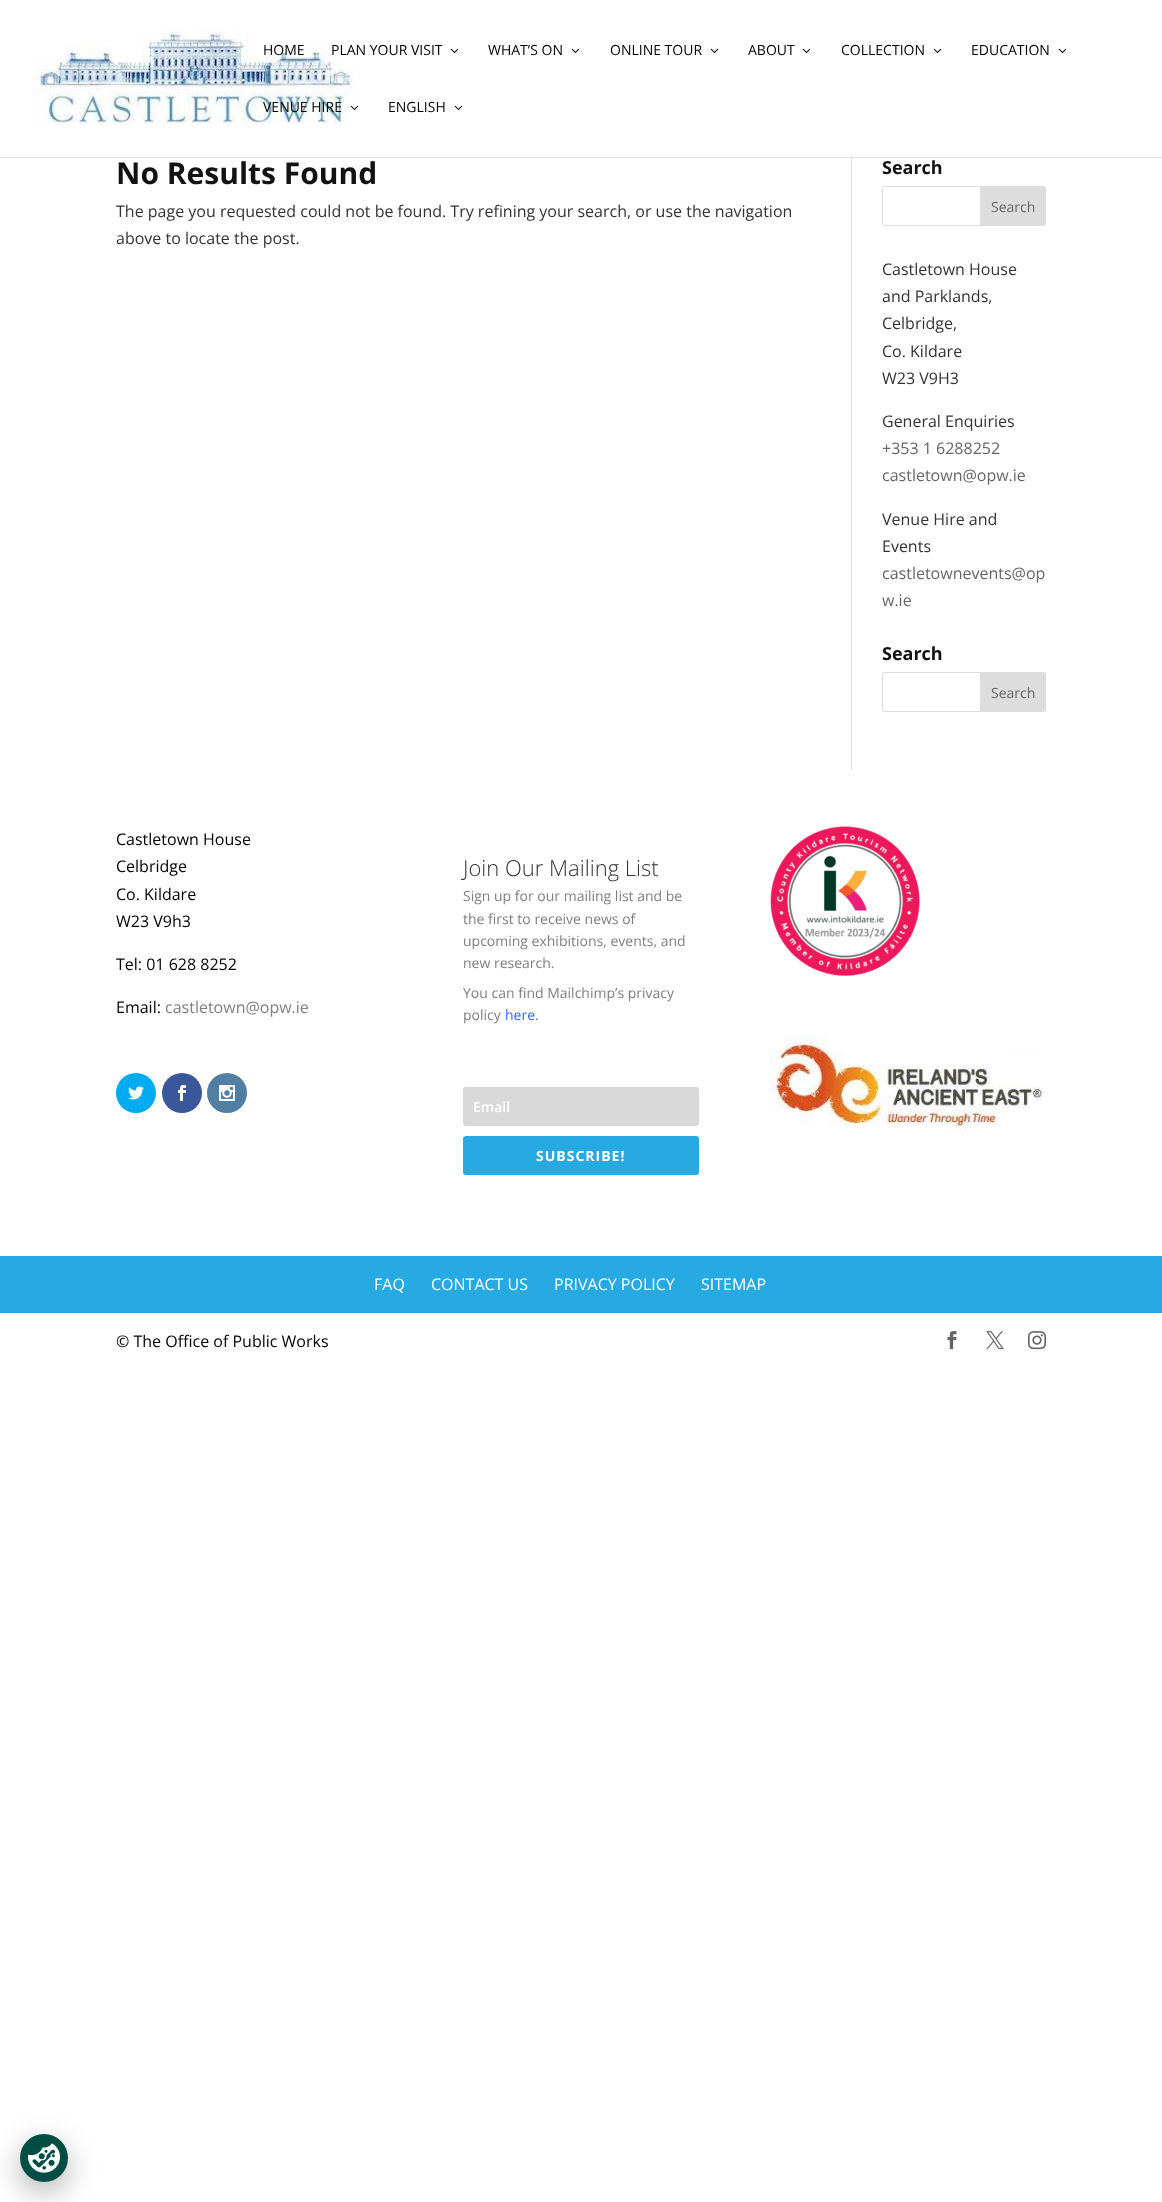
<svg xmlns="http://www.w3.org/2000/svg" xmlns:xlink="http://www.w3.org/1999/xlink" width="1162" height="2202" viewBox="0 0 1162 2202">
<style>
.cls-1{font:14px Open Sans;fill:#000000}
.cls-2{font:bold 30px Open Sans;fill:#121212}
.cls-3{font:16px Open Sans;fill:#333333}
.cls-4{font:bold 18px Open Sans;fill:#121212}
.cls-5{font:14px Open Sans;fill:#666666}
.cls-6{font:16px Open Sans;fill:#666666}
.cls-7{font:16px Open Sans;fill:#000000}
.cls-8{font:16px Open Sans;fill:#7f7f7f}
.cls-9{font:300 22px Open Sans;fill:#333333}
.cls-10{font:14px Open Sans;fill:#7f7f7f}
.cls-11{font:14px Open Sans;fill:#3366ff}
.cls-12{font:600 14px Open Sans;fill:#ffffff}
.cls-13{font:bold 14px Open Sans;letter-spacing:1px;fill:#ffffff}
.cls-14{font:16px Open Sans;fill:#ffffff}
</style>
<rect width="100%" height="100%" fill="#ffffff"/>
<rect fill="#e6e6e6" x="0" y="157" width="1162" height="1"/>
<image xlink:href="image0.png" x="34" y="31" width="320" height="95"/>
<image xlink:href="image1.png" x="450" y="48" width="9" height="5"/>
<image xlink:href="image1.png" x="571" y="48" width="9" height="5"/>
<image xlink:href="image1.png" x="710" y="48" width="9" height="5"/>
<image xlink:href="image1.png" x="802" y="48" width="9" height="5"/>
<image xlink:href="image1.png" x="933" y="48" width="9" height="5"/>
<image xlink:href="image1.png" x="1058" y="48" width="9" height="5"/>
<image xlink:href="image2.png" x="350" y="105" width="9" height="5"/>
<image xlink:href="image1.png" x="454" y="105" width="9" height="5"/>
<rect fill="#e2e2e2" x="851" y="158" width="1" height="612"/>
<rect fill="#cbcbcb" x="851" y="157" width="1" height="1"/>
<rect fill="none" stroke="#dddddd" x="882.5" y="186.5" width="163" height="39" rx="2.5"/>
<path fill="#dddddd" stroke="#dddddd" d="M980.5 186.5H1043C1044.5 186.5 1045.5 187.5 1045.5 189V223C1045.5 224.5 1044.5 225.5 1043 225.5H980.5Z"/>
<rect fill="none" stroke="#dddddd" x="882.5" y="672.5" width="163" height="39" rx="2.5"/>
<path fill="#dddddd" stroke="#dddddd" d="M980.5 672.5H1043C1044.5 672.5 1045.5 673.5 1045.5 675V709C1045.5 710.5 1044.5 711.5 1043 711.5H980.5Z"/>
<circle fill="#00abf0" cx="136" cy="1093" r="20"/>
<image xlink:href="image3.png" x="128" y="1086" width="16" height="14"/>
<circle fill="#3a579a" cx="182" cy="1093" r="20"/>
<image xlink:href="image4.png" x="178" y="1085" width="8" height="16"/>
<circle fill="#517fa4" cx="227" cy="1093" r="20"/>
<image xlink:href="image5.png" x="219" y="1085" width="16" height="16"/>
<rect fill="#d9d9d9" x="463" y="1087" width="236" height="39" rx="3"/>
<rect fill="#27a9e1" x="463" y="1136" width="236" height="39" rx="3"/>
<image xlink:href="image6.png" x="770" y="826" width="150" height="150"/>
<image xlink:href="image7.png" x="770" y="1036" width="273" height="96"/>
<rect fill="#27a9e1" x="0" y="1256" width="1162" height="57"/>
<image xlink:href="image8.png" x="947" y="1331" width="10" height="19"/>
<image xlink:href="image9.png" x="986" y="1331" width="18" height="19"/>
<image xlink:href="image10.png" x="1028" y="1331" width="18" height="19"/>
<rect fill="#000002" fill-opacity="0.3" filter="blur(15px)" x="20" y="2144" width="48" height="48" rx="24"/>
<circle fill="#004d44" cx="44" cy="2158" r="24"/>
<image xlink:href="image11.png" x="28" y="2143" width="32" height="30"/>
<text class="cls-1" x="263" y="55">HOME</text>
<text class="cls-1" x="331" y="55">PLAN YOUR VISIT</text>
<text class="cls-1" x="488" y="55">WHAT’S ON</text>
<text class="cls-1" x="610" y="55">ONLINE TOUR</text>
<text class="cls-1" x="748" y="55">ABOUT</text>
<text class="cls-1" x="841" y="55">COLLECTION</text>
<text class="cls-1" x="971" y="55">EDUCATION</text>
<text class="cls-1" x="263" y="112">VENUE HIRE</text>
<text class="cls-1" x="388" y="112">ENGLISH</text>
<text class="cls-2" x="116" y="184">No Results Found</text>
<text class="cls-3"><tspan x="116" y="217">The page you requested could not be found. Try refining your search, or use the navigation</tspan><tspan x="116" y="244">above to locate the post.</tspan></text>
<text class="cls-4" x="882" y="174">Search</text>
<text class="cls-5" x="991" y="212">Search</text>
<text class="cls-3"><tspan x="882" y="275">Castletown House</tspan><tspan x="882" y="302">and Parklands,</tspan><tspan x="882" y="329">Celbridge,</tspan><tspan x="882" y="357">Co. Kildare</tspan><tspan x="882" y="384">W23 V9H3</tspan></text>
<text class="cls-3" x="882" y="427">General Enquiries</text>
<text class="cls-6"><tspan x="882" y="454">+353 1 6288252</tspan><tspan x="882" y="481">castletown@opw.ie</tspan></text>
<text class="cls-3"><tspan x="882" y="525">Venue Hire and</tspan><tspan x="882" y="552">Events</tspan></text>
<text class="cls-6"><tspan x="882" y="579">castletownevents@op</tspan><tspan x="882" y="606">w.ie</tspan></text>
<text class="cls-4" x="882" y="660">Search</text>
<text class="cls-5" x="991" y="698">Search</text>
<text class="cls-7"><tspan x="116" y="845">Castletown House</tspan><tspan x="116" y="872">Celbridge</tspan><tspan x="116" y="900">Co. Kildare</tspan><tspan x="116" y="927">W23 V9h3</tspan></text>
<text class="cls-7" x="116" y="970">Tel: 01 628 8252</text>
<text class="cls-7" x="116" y="1013">Email:</text>
<text class="cls-8" x="165" y="1013">castletown@opw.ie</text>
<text class="cls-9" x="463" y="876">Join Our Mailing List</text>
<text class="cls-10"><tspan x="463" y="901">Sign up for our mailing list and be</tspan><tspan x="463" y="924">the first to receive news of</tspan><tspan x="463" y="946">upcoming exhibitions, events, and</tspan><tspan x="463" y="968">new research.</tspan></text>
<text class="cls-10"><tspan x="463" y="998">You can find Mailchimp’s privacy</tspan><tspan x="463" y="1020">policy</tspan></text>
<text class="cls-11" x="505" y="1020">here</text>
<text class="cls-10" x="535" y="1020">.</text>
<text class="cls-12" x="473" y="1112">Email</text>
<text class="cls-13" x="536" y="1161">SUBSCRIBE!</text>
<text class="cls-14" x="374" y="1290">FAQ</text>
<text class="cls-14" x="431" y="1290">CONTACT US</text>
<text class="cls-14" x="554" y="1290">PRIVACY POLICY</text>
<text class="cls-14" x="701" y="1290">SITEMAP</text>
<text class="cls-7" x="116" y="1347">© The Office of Public Works</text>
</svg>
